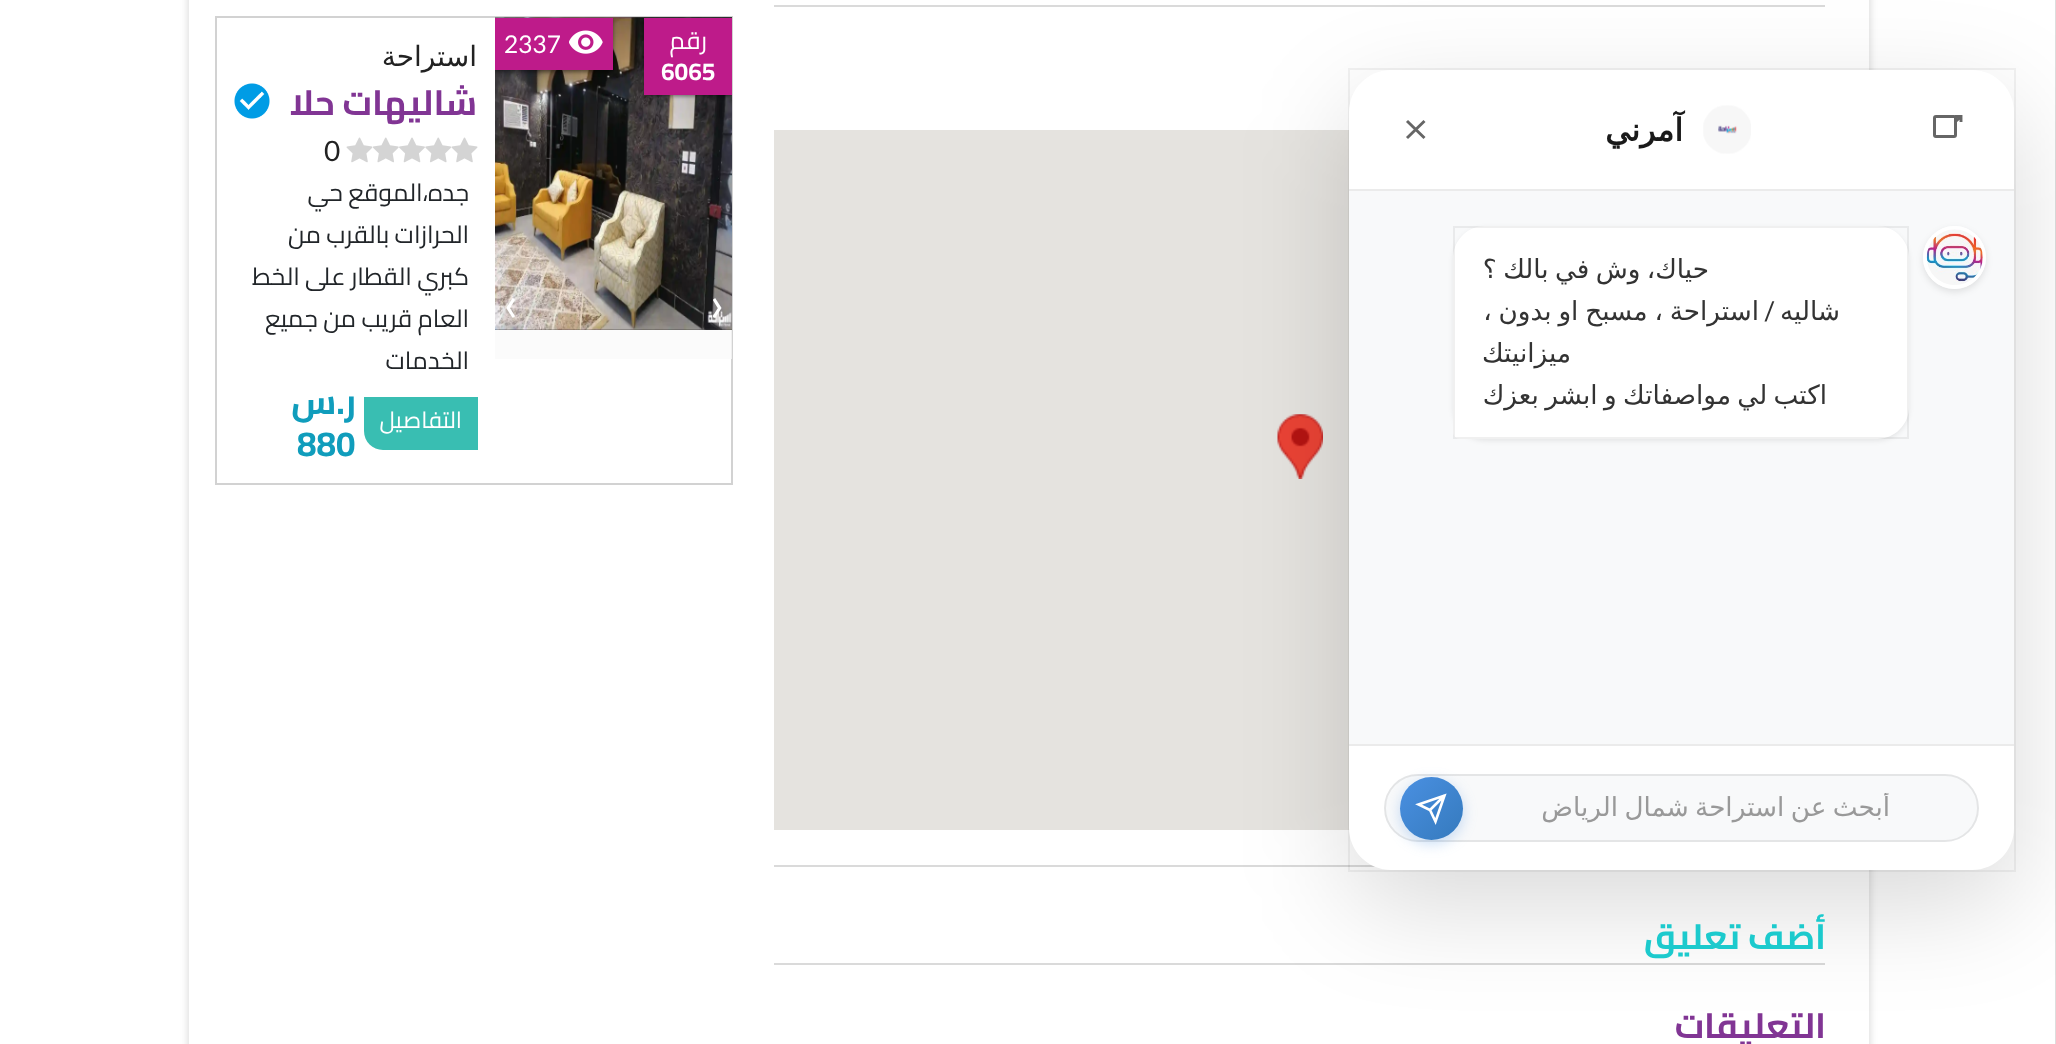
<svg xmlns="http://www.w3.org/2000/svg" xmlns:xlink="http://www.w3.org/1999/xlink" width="2056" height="1044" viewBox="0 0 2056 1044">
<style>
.cls-1{font:24.5px Cairo;direction:rtl;fill:#ffffff}
.cls-2{font:bold 24.5px Cairo;fill:#ffffff}
.cls-3{font:24.5px Lato;fill:#ffffff}
.cls-4{font:49px Lato;fill:#ffffff}
.cls-5{font:28px DejaVu Sans;direction:rtl;fill:#222222}
.cls-6{font:bold 35px Cairo;direction:rtl;fill:#813594}
.cls-7{font:28px Lato;fill:#222222}
.cls-8{font:24.5px Cairo;direction:rtl;fill:#212529}
.cls-9{font:23px Cairo;direction:rtl;fill:#ffffff}
.cls-10{font:bold 35px Cairo;direction:rtl;fill:#109dbc}
.cls-11{font:bold 35px Cairo;fill:#109dbc}
.cls-12{font:bold 35px Cairo;direction:rtl;fill:#1ccacd}
.cls-13{font:bold 31.5px DejaVu Sans;letter-spacing:-0.5px;direction:rtl;fill:#1a1a1a}
.cls-14{font:26.25px DejaVu Sans;direction:rtl;fill:#333333}
.cls-15{font:26.25px Roboto;direction:rtl;fill:#333333}
.cls-16{font:26.25px DejaVu Sans;direction:rtl;fill:#999999}
</style>
<defs>
<clipPath id="clip1"><path d="M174 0H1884V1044H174ZM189-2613H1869V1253H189Z" clip-rule="evenodd"/></clipPath>
<clipPath id="clip2"><rect x="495" y="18" width="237" height="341"/></clipPath>
<linearGradient id="g1" gradientUnits="userSpaceOnUse" x1="1400" y1="777" x2="1463" y2="840"><stop offset="0" stop-color="#4a90e2"/><stop offset="1" stop-color="#357abd"/></linearGradient>
<clipPath id="clip3"><rect x="1414" y="793" width="476" height="31"/></clipPath>
</defs>
<rect width="100%" height="100%" fill="#ffffff"/>
<rect fill="#dddddd" x="2055" y="0" width="1" height="1044"/>
<g clip-path="url(#clip1)">
<rect fill="#a6a6a6" fill-opacity="0.5" filter="blur(4.5px)" x="189" y="-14" width="1680" height="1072"/>
</g>
<rect fill="none" stroke="#d2d2d2" stroke-width="2" x="216" y="17" width="516" height="467"/>
<rect fill="#f9f9f9" fill-opacity="0.72" x="495" y="329" width="237" height="30"/>
<image xlink:href="image1.png" x="495" y="17" width="237" height="313"/>
<g clip-path="url(#clip2)">
<rect fill="#000000" fill-opacity="0.5" filter="blur(2px)" x="644" y="19" width="88" height="77"/>
</g>
<rect fill="#be1b8a" x="644" y="18" width="88" height="77"/>
<g clip-path="url(#clip2)">
<rect fill="#000000" fill-opacity="0.5" filter="blur(2px)" x="495" y="19" width="118" height="53"/>
</g>
<rect fill="#be1b8a" x="495" y="18" width="118" height="52"/>
<image xlink:href="image0.png" x="569" y="30" width="34" height="24"/>
<image xlink:href="image2.png" x="234" y="83" width="36" height="36"/>
<image xlink:href="image4.png" x="425" y="137" width="27" height="26"/>
<image xlink:href="image3.png" x="451" y="137" width="27" height="26"/>
<image xlink:href="image5.png" x="399" y="137" width="26" height="26"/>
<image xlink:href="image6.png" x="373" y="137" width="26" height="26"/>
<image xlink:href="image7.png" x="346" y="137" width="27" height="26"/>
<path fill="#39beb2" d="M364 397H478V450H383C372.5 450 364 441.5 364 431Z"/>
<rect fill="#dadada" x="774" y="5" width="1051" height="2"/>
<rect fill="#dadada" x="774" y="865" width="602" height="2"/>
<rect fill="#e5e3df" x="774" y="130" width="576" height="700"/>
<image xlink:href="image8.png" x="1277" y="414" width="46" height="65"/>
<rect fill="#dadada" x="774" y="963" width="1051" height="2"/>
<rect fill="none" stroke="#000000" stroke-opacity="0.05" stroke-width="2" x="1349" y="69" width="666" height="802"/>
<rect fill="#000000" fill-opacity="0.15" filter="blur(52.5px)" x="1349" y="105" width="665" height="800" rx="42"/>
<path fill="#ffffff" d="M1391 70H1972C1995 70 2014 89 2014 112V191H1349V112C1349 89 1368 70 1391 70Z"/>
<rect fill="#ebebeb" x="1349" y="189" width="665" height="2"/>
<rect fill="none" stroke="#666666" stroke-width="3" x="1934.5" y="116.5" width="21" height="20" rx="1.5"/>
<path fill="none" stroke="#666666" stroke-width="2.9" d="M1955 116.5H1961V122M1955 122L1961 116.5"/>
<image xlink:href="image9.png" x="1703" y="105" width="48" height="49"/>
<path fill="none" stroke="#666666" stroke-width="2.9" d="M1424.5 121L1407 138M1407 121L1424.5 138"/>
<rect fill="#f8f9fa" x="1349" y="191" width="665" height="553"/>
<rect fill="#000000" fill-opacity="0.1" filter="blur(3.5px)" x="1923" y="229" width="63" height="63" rx="31.5"/>
<circle fill="#ffffff" cx="1954.5" cy="257.5" r="31.5"/>
<circle fill="none" stroke="#ffffff" stroke-opacity="0.8" stroke-width="4" cx="1954.5" cy="257.5" r="29.5"/>
<image xlink:href="image10.png" x="1926" y="229" width="57" height="56"/>
<rect fill="#000000" fill-opacity="0.08" filter="blur(2.5px)" x="1453" y="228" width="456" height="213" rx="32"/>
<path fill="#ffffff" d="M1485 226H1877C1894.5 226 1909 240.5 1909 258V407C1909 424.5 1894.5 439 1877 439H1460C1456 439 1453 436 1453 432V258C1453 240.5 1467.5 226 1485 226Z"/>
<rect fill="none" stroke="#000000" stroke-opacity="0.06" stroke-width="2" x="1454" y="227" width="454" height="211"/>
<path fill="#ffffff" d="M1349 744H2014V828C2014 851 1995 870 1972 870H1391C1368 870 1349 851 1349 828Z"/>
<rect fill="#ebebeb" x="1349" y="744" width="665" height="2"/>
<rect fill="#f8f9fa" x="1384" y="774" width="595" height="68" rx="34"/>
<rect fill="none" stroke="#000000" stroke-opacity="0.08" stroke-width="2" x="1385" y="775" width="593" height="66" rx="33"/>
<rect fill="#4a90e2" fill-opacity="0.3" filter="blur(7px)" x="1400" y="781" width="63" height="63" rx="31.5"/>
<circle fill="url(#g1)" cx="1431.5" cy="808.5" r="31.5"/>
<path fill="none" stroke="#ffffff" stroke-width="2.6" d="M1444.5 795.5L1430 810M1444.5 795.5L1435.5 821.5L1430 810L1418.5 804.5Z"/>
<text class="cls-1" x="707" y="49">رقم</text>
<text class="cls-2" x="661" y="80">6065</text>
<text class="cls-3" x="504" y="53">2337</text>
<text class="cls-4" x="710" y="321">›</text>
<text class="cls-4" x="504" y="321">‹</text>
<text class="cls-5" x="477" y="66">استراحة</text>
<text class="cls-6" x="477" y="115">شاليهات حلا</text>
<text class="cls-7" x="324" y="161">0</text>
<text class="cls-8"><tspan x="469" y="201">جده،الموقع حي</tspan><tspan x="469" y="243">الحرازات بالقرب من</tspan><tspan x="469" y="285">كبري القطار على الخط</tspan><tspan x="469" y="327">العام قريب من جميع</tspan><tspan x="469" y="369">الخدمات</tspan></text>
<text class="cls-9" x="462" y="428">التفاصيل</text>
<text class="cls-10" x="356" y="414">ر.س</text>
<text class="cls-11" x="297" y="456">880</text>
<text class="cls-12" x="1826" y="949">أضف تعليق</text>
<text class="cls-6" x="1826" y="1038">التعليقات</text>
<text class="cls-13" x="1683" y="141">آمرني</text>
<text class="cls-14" x="1709" y="278" word-spacing="-2">حياك، وش في بالك ؟</text>
<text class="cls-14" x="1840" y="320">شاليه</text>
<text class="cls-15" x="1775" y="320">/</text>
<text class="cls-14" x="1759" y="320" word-spacing="-1.5">استراحة ، مسبح او بدون ،</text>
<text class="cls-14" x="1571" y="362">ميزانيتك</text>
<text class="cls-14" x="1827" y="404" word-spacing="-2">اكتب لي مواصفاتك و ابشر بعزك</text>
<g clip-path="url(#clip3)">
<text class="cls-16" x="1890" y="816" word-spacing="-2">أبحث عن استراحة شمال الرياض</text>
</g>
</svg>
